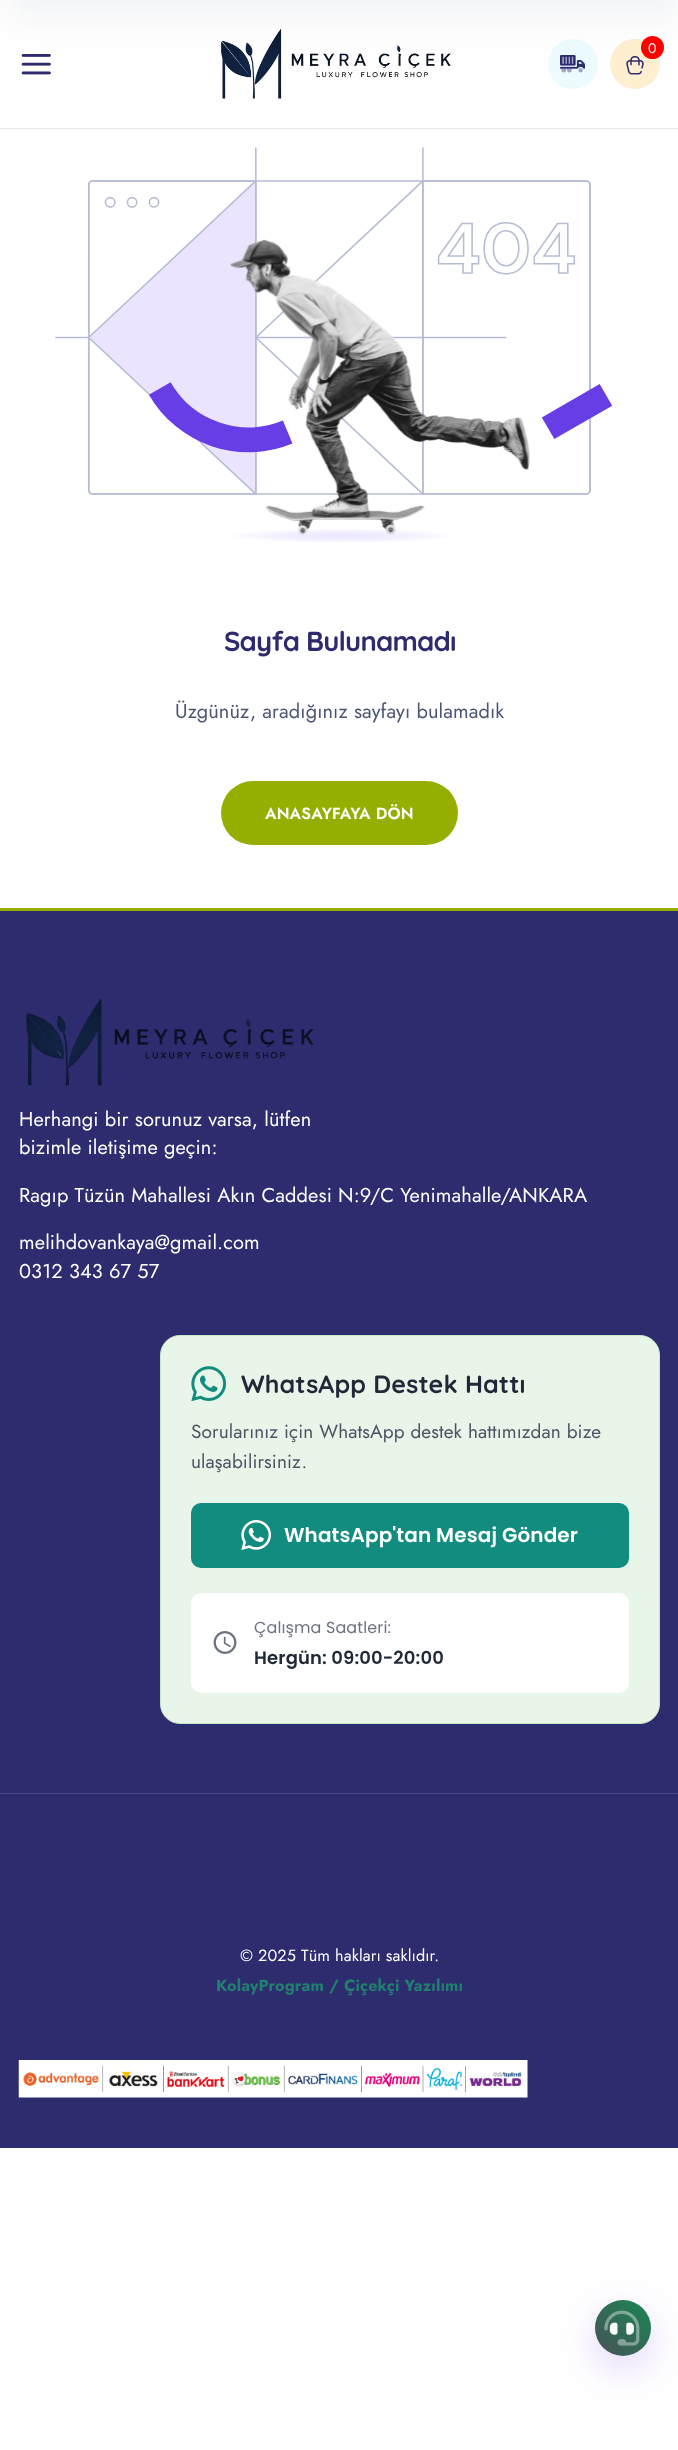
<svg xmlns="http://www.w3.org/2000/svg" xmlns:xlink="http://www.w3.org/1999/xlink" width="678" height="2450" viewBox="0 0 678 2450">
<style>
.cls-1{font:14px Jost;fill:#ffffff}
.cls-2{font:bold 27.5px Quicksand;letter-spacing:-0.8px;fill:#2d2a6e}
.cls-3{font:20px Jost;letter-spacing:0.12px;fill:#4d5574}
.cls-4{font:600 16.25px Jost;letter-spacing:0.12px;fill:#ffffff}
.cls-5{font:20px Jost;letter-spacing:0.12px;fill:#ffffff}
.cls-6{font:bold 25px Quicksand;letter-spacing:0.12px;fill:#1f2937}
.cls-7{font:19px Jost;letter-spacing:0.12px;fill:#4b5563}
.cls-8{font:600 20px Poppins;letter-spacing:0.12px;fill:#ffffff}
.cls-9{font:16px Poppins;letter-spacing:0.12px;fill:#6b7280}
.cls-10{font:600 18px Poppins;letter-spacing:0.12px;fill:#1f2937}
.cls-11{font:16.25px Jost;letter-spacing:0.12px;fill:#ffffff}
.cls-12{font:bold 16.25px Jost;letter-spacing:0.12px;fill:#217f6d}
</style>
<defs>
<linearGradient id="g1" gradientUnits="userSpaceOnUse" x1="594" y1="2356" x2="651" y2="2300"><stop offset="0" stop-color="#495057"/><stop offset="1" stop-color="#198754"/></linearGradient>
</defs>
<rect width="100%" height="100%" fill="#ffffff"/>
<image xlink:href="image0.png" x="221" y="29" width="230" height="70"/>
<circle fill="#ecfbff" cx="573" cy="64" r="25"/>
<image xlink:href="image1.png" x="560" y="55" width="25" height="14"/>
<image xlink:href="image2.png" x="561" y="57" width="22" height="16"/>
<circle fill="#feefd0" cx="635" cy="64" r="25"/>
<image xlink:href="image3.png" x="626" y="56" width="18" height="19"/>
<circle fill="#ff0000" cx="652.5" cy="47.5" r="11.5"/>
<image xlink:href="image4.png" x="21" y="54" width="30" height="21"/>
<rect fill="#050d36" fill-opacity="0.05" filter="blur(19px)" x="6" y="-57" width="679" height="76"/>
<rect fill="#e6ebf0" x="0" y="128" width="678" height="1"/>
<image xlink:href="image5.png" x="55" y="147" width="558" height="396"/>
<rect fill="#96ae00" x="221" y="781" width="237" height="64" rx="32"/>
<rect fill="#2d2c6e" x="0" y="911" width="678" height="1237"/>
<rect fill="#96ae00" x="0" y="908" width="678" height="3"/>
<rect fill="#484492" x="0" y="1793" width="678" height="1"/>
<image xlink:href="image6.png" x="26" y="999" width="288" height="87"/>
<rect fill="#e8f5e9" stroke="#c8e6c9" x="160.5" y="1335.5" width="499" height="388" rx="19.5"/>
<image xlink:href="image7.png" x="191" y="1366" width="35" height="35"/>
<rect fill="#128c7e" x="191" y="1503" width="438" height="65" rx="10"/>
<image xlink:href="image8.png" x="241" y="1520" width="30" height="30"/>
<rect fill="#ffffff" x="191" y="1593" width="438" height="100" rx="10"/>
<image xlink:href="image9.png" x="213" y="1631" width="24" height="23"/>
<image xlink:href="image10.png" x="18" y="2060" width="510" height="38"/>
<rect fill="#6d28d9" fill-opacity="0.2" filter="blur(19px)" x="595" y="2313" width="56" height="56" rx="28"/>
<circle fill="url(#g1)" cx="623" cy="2328" r="28"/>
<image xlink:href="image12.png" x="609" y="2322" width="25" height="13"/>
<image xlink:href="image11.png" x="604" y="2310" width="36" height="36"/>
<text class="cls-1" x="648" y="53">0</text>
<text class="cls-2" x="224" y="651">Sayfa Bulunamadı</text>
<text class="cls-3" x="175" y="718">Üzgünüz, aradığınız sayfayı bulamadık</text>
<text class="cls-4" x="265" y="819">ANASAYFAYA DÖN</text>
<text class="cls-5"><tspan x="19" y="1126">Herhangi bir sorunuz varsa, lütfen</tspan><tspan x="19" y="1154">bizimle iletişime geçin:</tspan></text>
<text class="cls-5" x="19" y="1202">Ragıp Tüzün Mahallesi Akın Caddesi N:9/C Yenimahalle/ANKARA</text>
<text class="cls-5"><tspan x="19" y="1249">melihdovankaya@gmail.com</tspan><tspan x="19" y="1278">0312 343 67 57</tspan></text>
<text class="cls-6" x="241" y="1393">WhatsApp Destek Hattı</text>
<text class="cls-7"><tspan x="191" y="1438">Sorularınız için WhatsApp destek hattımızdan bize</tspan><tspan x="191" y="1468">ulaşabilirsiniz.</tspan></text>
<text class="cls-8" x="284" y="1542">WhatsApp'tan Mesaj Gönder</text>
<text class="cls-9" x="254" y="1633">Çalışma Saatleri:</text>
<text class="cls-10" x="254" y="1664">Hergün: 09:00-20:00</text>
<text class="cls-11" x="240" y="1961">© 2025 Tüm hakları saklıdır.</text>
<text class="cls-12" x="216" y="1991">KolayProgram / Çiçekçi Yazılımı</text>
</svg>
